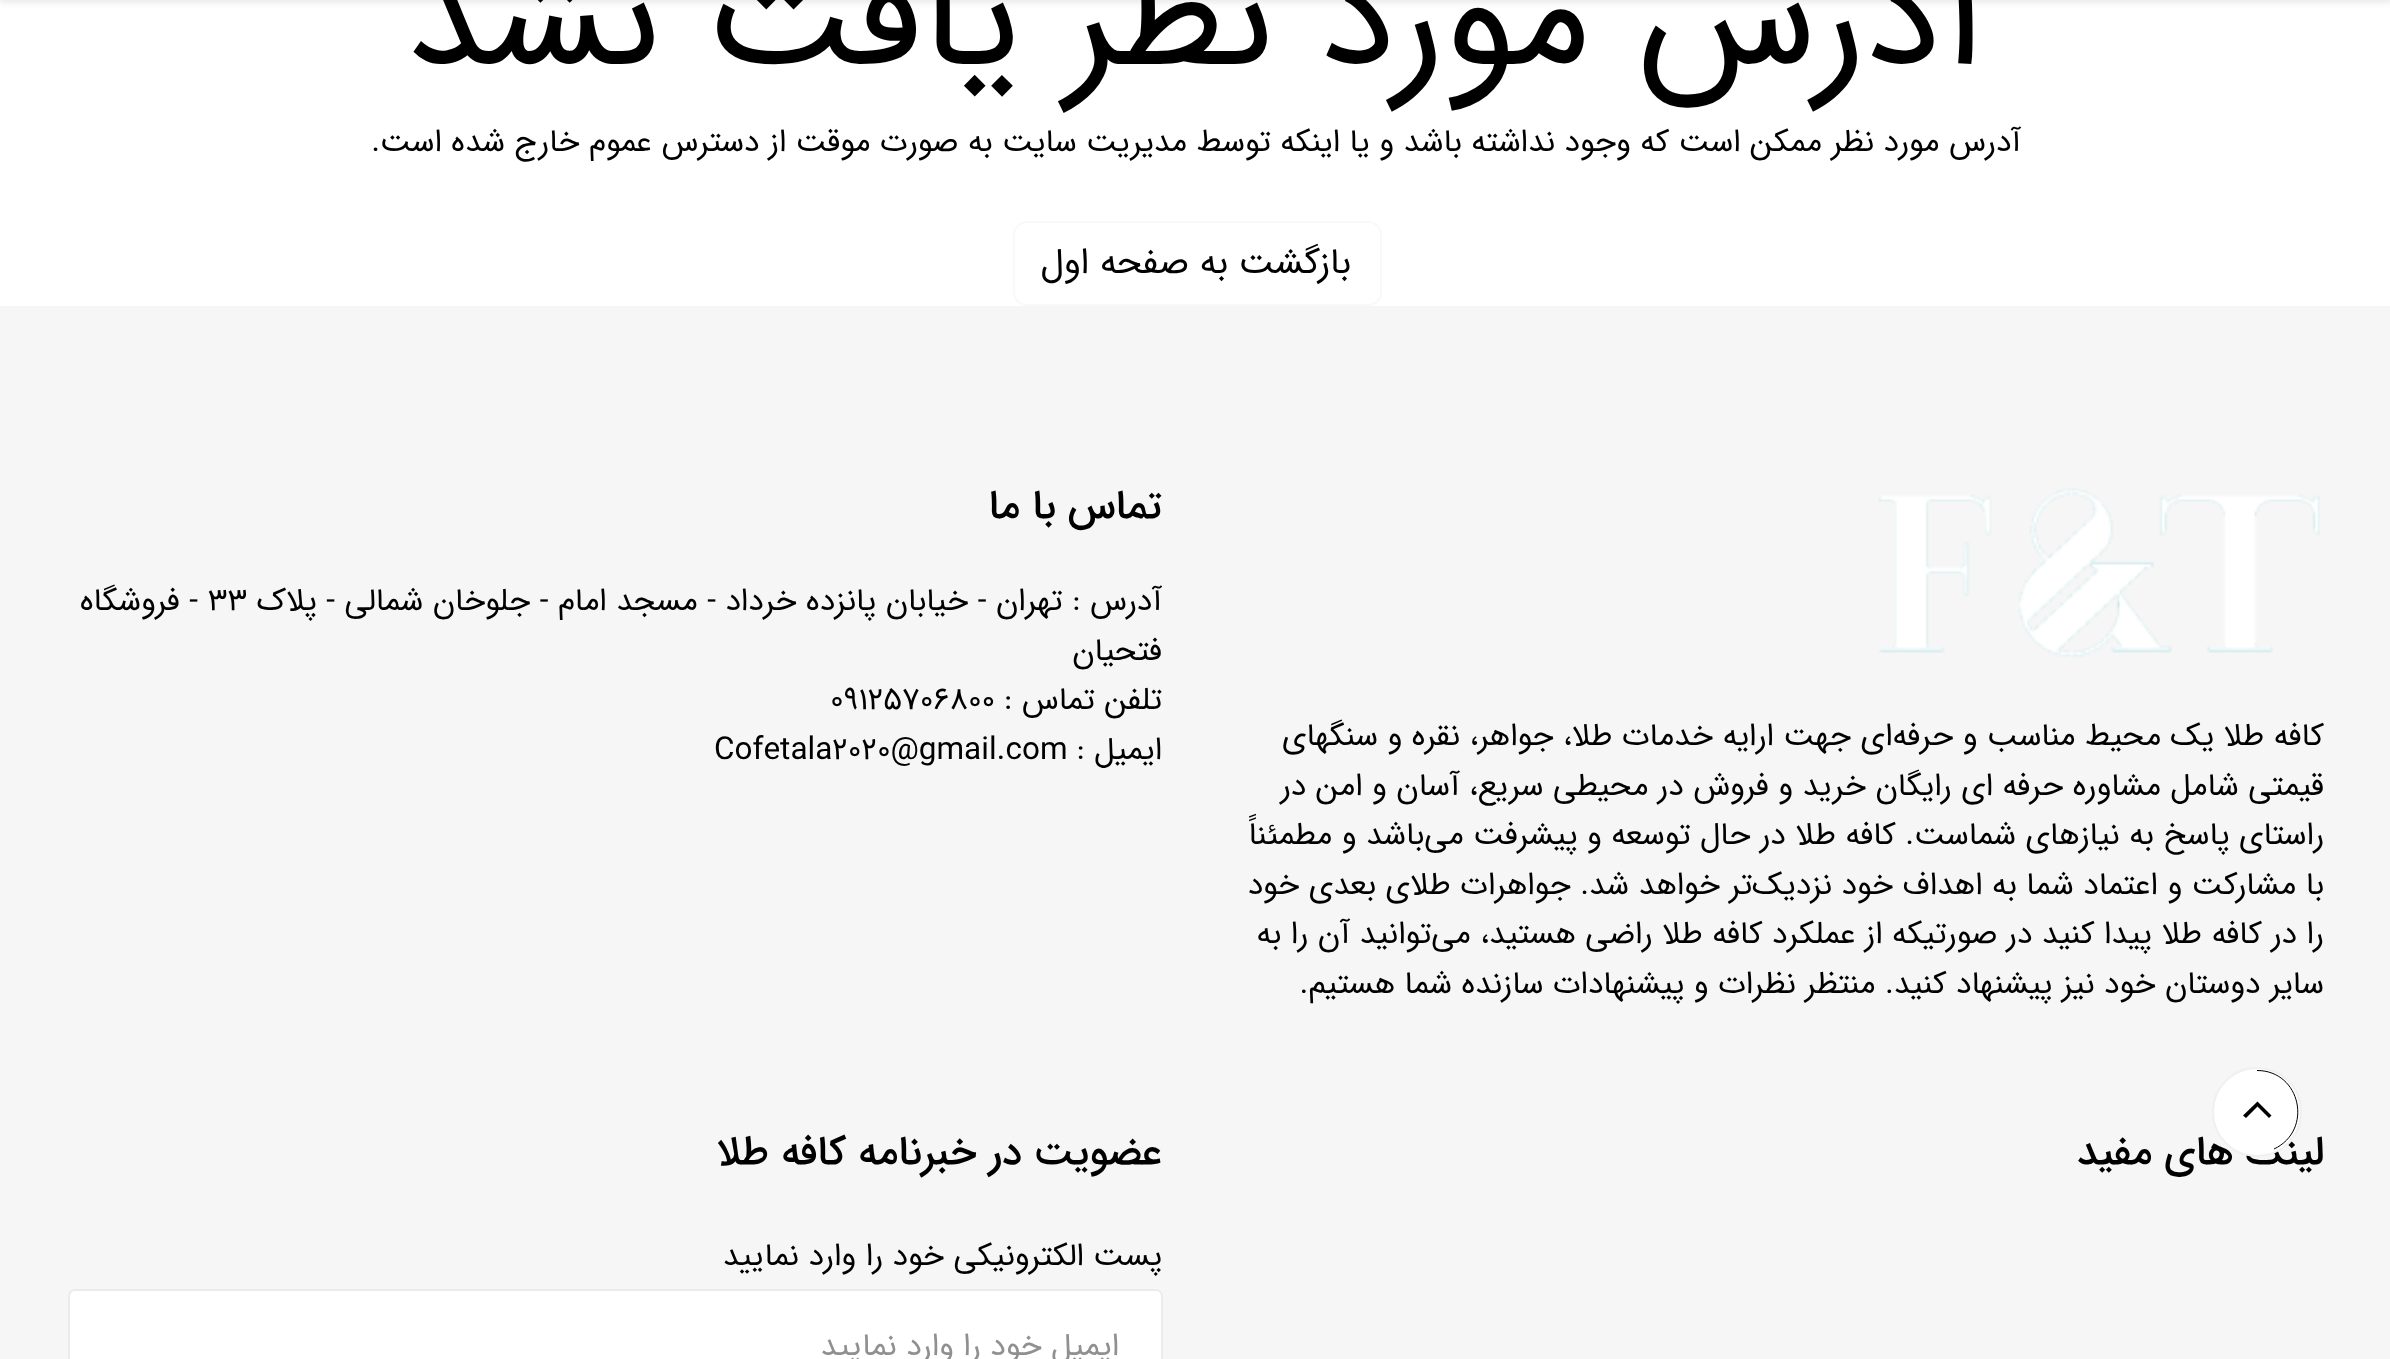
<svg xmlns="http://www.w3.org/2000/svg" xmlns:xlink="http://www.w3.org/1999/xlink" width="2390" height="1359" viewBox="0 0 2390 1359">
<style>
.cls-1{font:153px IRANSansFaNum;direction:rtl;fill:#000000}
.cls-2{font:31.5px IRANSansFaNum;direction:rtl;fill:#000000}
.cls-3{font:36px IRANSansFaNum;direction:rtl;fill:#000000}
.cls-4{font:500 40.5px IRANSansFaNum;direction:rtl;fill:#000000}
.cls-5{font:31.5px IRANSansFaNum;fill:#000000}
.cls-6{font:31.5px IRANSansFaNum;direction:rtl;fill:#909090}
</style>
<rect width="100%" height="100%" fill="#ffffff"/>
<rect fill="#000000" fill-opacity="0.1" filter="blur(3.5px)" x="0" y="-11" width="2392" height="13"/>
<rect fill="none" stroke="#f8f9fa" stroke-width="2" x="1014" y="222" width="367" height="83" rx="13"/>
<rect fill="#f6f6f6" x="0" y="306" width="2390" height="1053"/>
<image xlink:href="image0.png" x="1878" y="488" width="442" height="170"/>
<rect fill="#ffffff" stroke="#ebebeb" stroke-width="2" x="69" y="1290" width="1093" height="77" rx="6"/>
<text class="cls-1" x="1987" y="64">آدرس مورد نظر یافت نشد</text>
<text class="cls-2" x="2021" y="151">آدرس مورد نظر ممکن است که وجود نداشته باشد و یا اینکه توسط مدیریت سایت به صورت موقت از دسترس عموم خارج شده است.</text>
<text class="cls-3" x="1351" y="273">بازگشت به صفحه اول</text>
<text class="cls-4" x="1162" y="518">تماس با ما</text>
<text class="cls-2" x="1162" y="610">آدرس : تهران - خیابان پانزده خرداد - مسجد امام - جلوخان شمالی - پلاک</text>
<text class="cls-5" x="208" y="610">33</text>
<text class="cls-2" x="198" y="610">- فروشگاه</text>
<text class="cls-2"><tspan x="1162" y="660">فتحیان</tspan><tspan x="1162" y="709">تلفن تماس :</tspan></text>
<text class="cls-5" x="830" y="709">09125706800</text>
<text class="cls-2" x="1162" y="759">ایمیل :</text>
<text class="cls-5" x="714" y="759">Cofetala2020@gmail.com</text>
<text class="cls-2"><tspan x="2324" y="745">کافه طلا یک محیط مناسب و حرفه‌ای جهت ارایه خدمات طلا، جواهر، نقره و سنگهای</tspan><tspan x="2324" y="795">قیمتی شامل مشاوره حرفه ای رایگان خرید و فروش در محیطی سریع، آسان و امن در</tspan><tspan x="2324" y="844">راستای پاسخ به نیازهای شماست. کافه طلا در حال توسعه و پیشرفت می‌باشد و مطمئناً</tspan><tspan x="2324" y="894">با مشارکت و اعتماد شما به اهداف خود نزدیک‌تر خواهد شد. جواهرات طلای بعدی خود</tspan><tspan x="2324" y="943">را در کافه طلا پیدا کنید در صورتیکه از عملکرد کافه طلا راضی هستید، می‌توانید آن را به</tspan><tspan x="2324" y="993">سایر دوستان خود نیز پیشنهاد کنید. منتظر نظرات و پیشنهادات سازنده شما هستیم.</tspan></text>
<text class="cls-4" x="2324" y="1164">لینک های مفید</text>
<text class="cls-4" x="1162" y="1164">عضویت در خبرنامه کافه طلا</text>
<text class="cls-2" x="1162" y="1265">پست الکترونیکی خود را وارد نمایید</text>
<text class="cls-6" x="1119" y="1355">ایمیل خود را وارد نمایید</text>
<circle fill="#ffffff" cx="2257" cy="1112" r="45"/>
<circle fill="none" stroke="#868686" stroke-opacity="0.12" stroke-width="2" cx="2257" cy="1112" r="44"/>
<path fill="none" stroke="#000000" d="M2257 1070.5C2301 1070.5 2313.5 1130.5 2274 1149"/>
<path fill="#000000" d="M2271.5 1115.5L2257.5 1101.5L2243 1115.5L2246 1118L2257.5 1106.5L2269 1118Z"/>
</svg>
